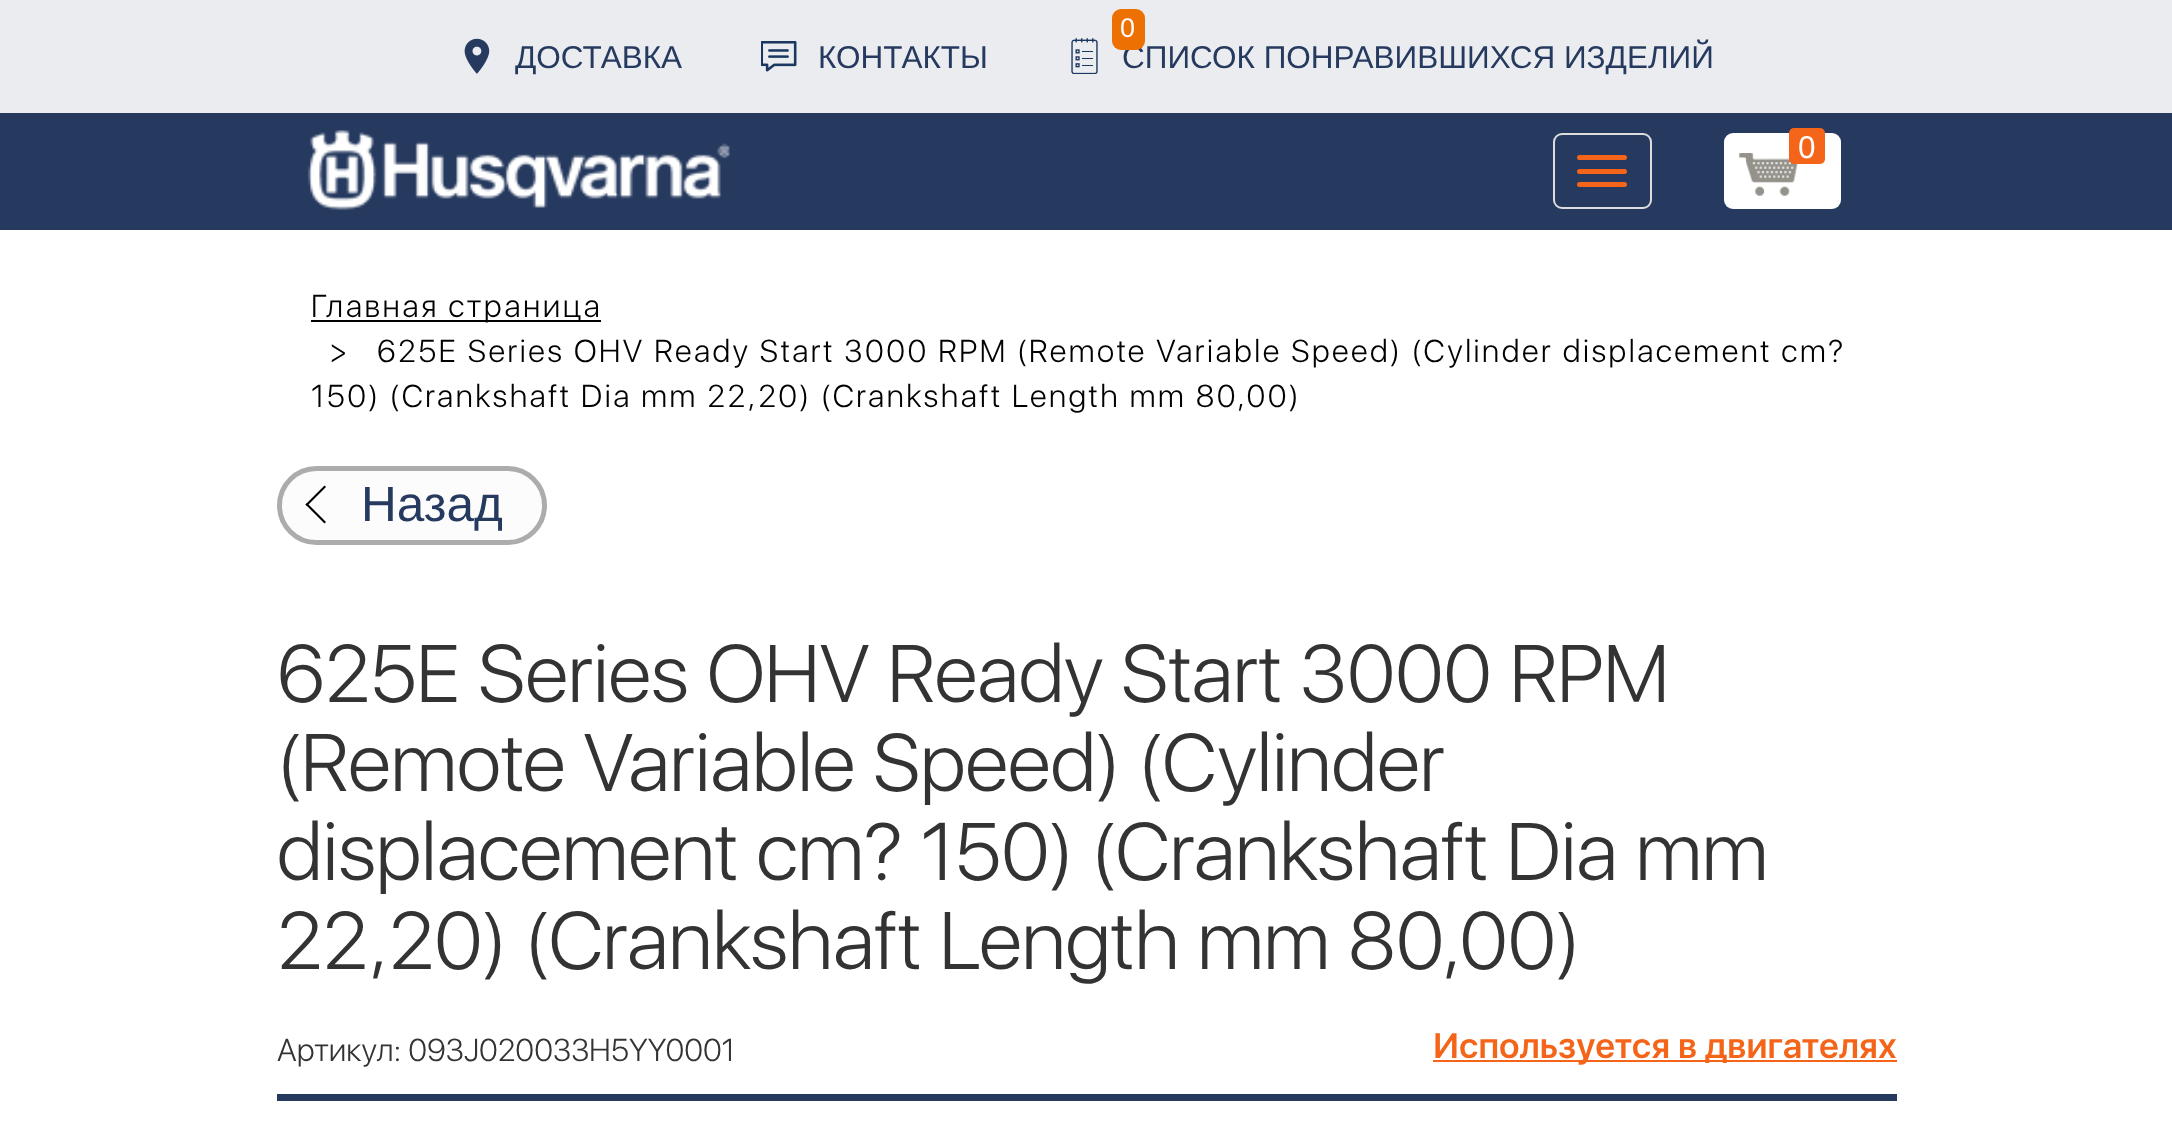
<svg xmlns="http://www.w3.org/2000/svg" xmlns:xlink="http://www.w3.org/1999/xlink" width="2172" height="1125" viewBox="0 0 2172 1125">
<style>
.cls-1{font:31.5px Liberation Sans;fill:#263a5f}
.cls-2{font:27px Liberation Sans;fill:#ffffff}
.cls-3{font:31.5px Liberation Sans;fill:#ffffff}
.cls-4{font:300 31.5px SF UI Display;letter-spacing:2.48px;fill:#000000}
.cls-5{font:49.5px Liberation Sans;fill:#263a5f}
.cls-6{font:300 81px SF UI Display;fill:#333333}
.cls-7{font:300 31.5px SF UI Display;fill:#333333}
.cls-8{font:600 36px SF UI Display;fill:#f4651a}
</style>
<rect width="100%" height="100%" fill="#ffffff"/>
<rect fill="#eaecf0" x="0" y="0" width="2172" height="113"/>
<image xlink:href="image0.png" x="464" y="38" width="26" height="36"/>
<image xlink:href="image1.png" x="761" y="41" width="36" height="31"/>
<image xlink:href="image2.png" x="1071" y="38" width="27" height="36"/>
<rect fill="#263a5f" x="0" y="113" width="2172" height="117"/>
<image xlink:href="image3.png" x="307" y="130" width="423" height="80"/>
<rect fill="none" stroke="#dddddd" stroke-width="2" x="1554" y="134" width="97" height="74" rx="8"/>
<rect fill="#f4651a" x="1577" y="155" width="50" height="5" rx="2.5"/>
<rect fill="#f4651a" x="1577" y="169" width="50" height="5" rx="2.5"/>
<rect fill="#f4651a" x="1577" y="182" width="50" height="5" rx="2.5"/>
<rect fill="#ffffff" x="1724" y="133" width="117" height="76" rx="9"/>
<image xlink:href="image4.png" x="1739" y="153" width="59" height="43"/>
<rect fill="#f4651a" x="1789" y="128" width="36" height="36" rx="5"/>
<rect fill="#000000" x="311" y="320" width="290" height="2"/>
<rect fill="#fcfcfc" stroke="#acacac" stroke-width="5" x="279.5" y="468.5" width="265" height="74" rx="37"/>
<path fill="#000000" d="M305.5 504.5L324.5 485.5L326 487L307 506Z"/>
<path fill="#000000" d="M305.5 504.5L307 503L326 522L324.5 523.5Z"/>
<rect fill="#f4651a" x="1433" y="1060" width="464" height="2"/>
<rect fill="#263a5f" x="277" y="1094" width="1620" height="7"/>
<text class="cls-1" x="515" y="68">ДОСТАВКА</text>
<text class="cls-1" x="818" y="68">КОНТАКТЫ</text>
<text class="cls-1" x="1122" y="68">СПИСОК ПОНРАВИВШИХСЯ ИЗДЕЛИЙ</text>
<rect fill="#ed7102" x="1112" y="9" width="33" height="41" rx="9"/>
<text class="cls-2" x="1120" y="37">0</text>
<text class="cls-3" x="1798" y="158">0</text>
<text class="cls-4" x="311" y="317">Главная страница</text>
<text class="cls-4" x="329" y="362">&gt;</text>
<text class="cls-4" x="377" y="362">625E Series OHV Ready Start 3000 RPM (Remote Variable Speed) (Cylinder displacement cm?</text>
<text class="cls-4" x="311" y="407">150) (Crankshaft Dia mm 22,20) (Crankshaft Length mm 80,00)</text>
<text class="cls-5" x="361" y="521">Назад</text>
<text class="cls-6"><tspan x="277" y="702">625E Series OHV Ready Start 3000 RPM</tspan><tspan x="277" y="791">(Remote Variable Speed) (Cylinder</tspan><tspan x="277" y="880">displacement cm? 150) (Crankshaft Dia mm</tspan><tspan x="277" y="969">22,20) (Crankshaft Length mm 80,00)</tspan></text>
<text class="cls-7" x="277" y="1061">Артикул: 093J020033H5YY0001</text>
<text class="cls-8" x="1433" y="1058">Используется в двигателях</text>
</svg>
